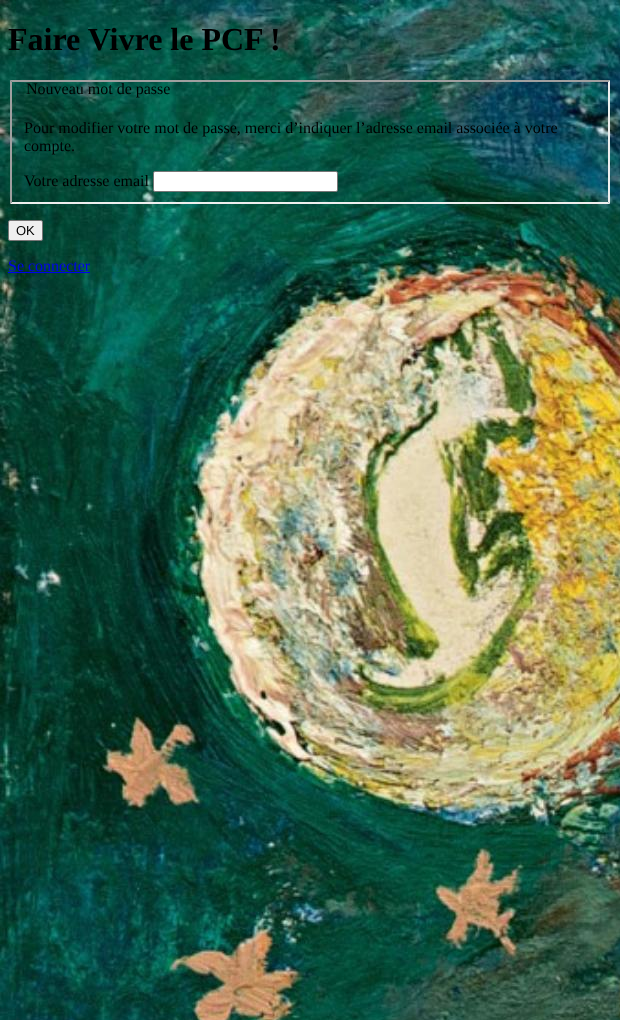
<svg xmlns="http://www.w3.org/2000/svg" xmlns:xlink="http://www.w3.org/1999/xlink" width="620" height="1020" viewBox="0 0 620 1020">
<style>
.cls-1{font:bold 32px Liberation Serif;fill:#000000}
.cls-2{font:16px Liberation Serif;fill:#000000}
.cls-3{font:13px Liberation Sans;fill:#000000}
.cls-4{font:16px Liberation Serif;fill:#0000ee}
</style>
<rect width="100%" height="100%" fill="#ffffff"/>
<image xlink:href="image0.png" x="0" y="0" width="620" height="1020"/>
<path fill="#9f9f9f" d="M10 80H610L608 82H12Z"/>
<path fill="#efefef" d="M610 80V204L608 202V82Z"/>
<path fill="#efefef" d="M610 204H10L12 202H608Z"/>
<path fill="#9f9f9f" d="M10 204V80L12 82V202Z"/>
<rect fill="#ffffff" stroke="#767676" x="153.5" y="171.5" width="184" height="20" rx="1.5"/>
<rect fill="#efefef" stroke="#767676" x="8.5" y="220.5" width="34" height="20" rx="1.5"/>
<rect fill="#0000ee" x="8" y="272" width="82" height="1"/>
<text class="cls-1" x="8" y="50">Faire Vivre le PCF</text>
<text class="cls-1" x="270" y="50">!</text>
<text class="cls-2" x="26" y="94">Nouveau mot de passe</text>
<text class="cls-2"><tspan x="24" y="133">Pour modifier votre mot de passe, merci d’indiquer l’adresse email associée à votre</tspan><tspan x="24" y="151">compte.</tspan></text>
<text class="cls-2" x="24" y="186">Votre adresse email</text>
<text class="cls-3" x="16" y="235">OK</text>
<text class="cls-4" x="8" y="271">Se connecter</text>
</svg>
